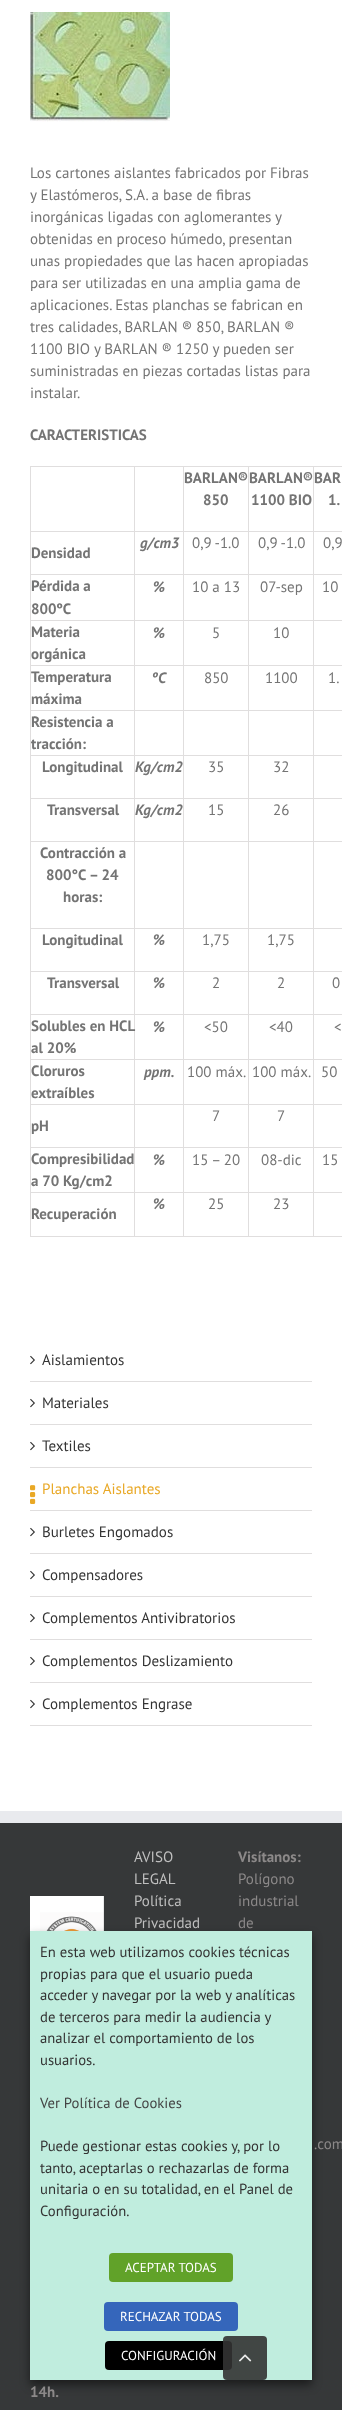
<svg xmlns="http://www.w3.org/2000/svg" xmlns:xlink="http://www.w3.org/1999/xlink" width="342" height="2410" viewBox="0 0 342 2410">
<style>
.cls-1{font:15px PT Sans;fill:#747474}
.cls-2{font:bold 15px PT Sans;fill:#747474}
.cls-3{font:italic bold 15px PT Sans;fill:#747474}
.cls-4{font:15px PT Sans;fill:#333333}
.cls-5{font:15px PT Sans;fill:#e9a825}
.cls-6{font:15px PT Sans;fill:#bfbfbf}
.cls-7{font:bold 15px PT Sans;fill:#8c8989}
.cls-8{font:15px PT Sans;fill:#8c8989}
.cls-9{font:14.7px PT Sans;fill:#333333}
.cls-10{font:14.7px PT Sans;fill:#444444}
.cls-11{font:13px PT Sans;fill:#ffffff}
</style>
<rect width="100%" height="100%" fill="#ffffff"/>
<image xlink:href="image0.png" x="30" y="12" width="140" height="110"/>
<rect fill="#e0dede" x="313" y="466" width="29" height="1"/>
<rect fill="#e0dede" x="313" y="531" width="29" height="1"/>
<rect fill="#e0dede" x="313" y="574" width="29" height="1"/>
<rect fill="#e0dede" x="313" y="620" width="29" height="1"/>
<rect fill="#e0dede" x="313" y="665" width="29" height="1"/>
<rect fill="#e0dede" x="313" y="710" width="29" height="1"/>
<rect fill="#e0dede" x="313" y="755" width="29" height="1"/>
<rect fill="#e0dede" x="313" y="798" width="29" height="1"/>
<rect fill="#e0dede" x="313" y="841" width="29" height="1"/>
<rect fill="#e0dede" x="313" y="928" width="29" height="1"/>
<rect fill="#e0dede" x="313" y="971" width="29" height="1"/>
<rect fill="#e0dede" x="313" y="1014" width="29" height="1"/>
<rect fill="#e0dede" x="313" y="1059" width="29" height="1"/>
<rect fill="#e0dede" x="313" y="1104" width="29" height="1"/>
<rect fill="#e0dede" x="313" y="1147" width="29" height="1"/>
<rect fill="#e0dede" x="313" y="1192" width="29" height="1"/>
<rect fill="#e0dede" x="313" y="1236" width="29" height="1"/>
<rect fill="#e0dede" x="313" y="1192" width="1" height="45"/>
<rect fill="#e0dede" x="248" y="1192" width="66" height="1"/>
<rect fill="#e0dede" x="313" y="1147" width="1" height="46"/>
<rect fill="#e0dede" x="248" y="1147" width="66" height="1"/>
<rect fill="#e0dede" x="313" y="1104" width="1" height="44"/>
<rect fill="#e0dede" x="248" y="1104" width="66" height="1"/>
<rect fill="#e0dede" x="313" y="1059" width="1" height="46"/>
<rect fill="#e0dede" x="248" y="1059" width="66" height="1"/>
<rect fill="#e0dede" x="313" y="1014" width="1" height="46"/>
<rect fill="#e0dede" x="248" y="1014" width="66" height="1"/>
<rect fill="#e0dede" x="313" y="971" width="1" height="44"/>
<rect fill="#e0dede" x="248" y="971" width="66" height="1"/>
<rect fill="#e0dede" x="313" y="928" width="1" height="44"/>
<rect fill="#e0dede" x="248" y="928" width="66" height="1"/>
<rect fill="#e0dede" x="313" y="841" width="1" height="88"/>
<rect fill="#e0dede" x="248" y="841" width="66" height="1"/>
<rect fill="#e0dede" x="313" y="798" width="1" height="44"/>
<rect fill="#e0dede" x="248" y="798" width="66" height="1"/>
<rect fill="#e0dede" x="313" y="755" width="1" height="44"/>
<rect fill="#e0dede" x="248" y="755" width="66" height="1"/>
<rect fill="#e0dede" x="313" y="710" width="1" height="46"/>
<rect fill="#e0dede" x="248" y="710" width="66" height="1"/>
<rect fill="#e0dede" x="313" y="665" width="1" height="46"/>
<rect fill="#e0dede" x="248" y="665" width="66" height="1"/>
<rect fill="#e0dede" x="313" y="620" width="1" height="46"/>
<rect fill="#e0dede" x="248" y="620" width="66" height="1"/>
<rect fill="#e0dede" x="313" y="574" width="1" height="47"/>
<rect fill="#e0dede" x="248" y="574" width="66" height="1"/>
<rect fill="#e0dede" x="313" y="531" width="1" height="44"/>
<rect fill="#e0dede" x="248" y="531" width="66" height="1"/>
<rect fill="#e0dede" x="313" y="466" width="1" height="66"/>
<rect fill="#e0dede" x="248" y="466" width="66" height="1"/>
<rect fill="#e0dede" x="248" y="1236" width="66" height="1"/>
<rect fill="#e0dede" x="248" y="1192" width="1" height="45"/>
<rect fill="#e0dede" x="183" y="1192" width="66" height="1"/>
<rect fill="#e0dede" x="248" y="1147" width="1" height="46"/>
<rect fill="#e0dede" x="183" y="1147" width="66" height="1"/>
<rect fill="#e0dede" x="248" y="1104" width="1" height="44"/>
<rect fill="#e0dede" x="183" y="1104" width="66" height="1"/>
<rect fill="#e0dede" x="248" y="1059" width="1" height="46"/>
<rect fill="#e0dede" x="183" y="1059" width="66" height="1"/>
<rect fill="#e0dede" x="248" y="1014" width="1" height="46"/>
<rect fill="#e0dede" x="183" y="1014" width="66" height="1"/>
<rect fill="#e0dede" x="248" y="971" width="1" height="44"/>
<rect fill="#e0dede" x="183" y="971" width="66" height="1"/>
<rect fill="#e0dede" x="248" y="928" width="1" height="44"/>
<rect fill="#e0dede" x="183" y="928" width="66" height="1"/>
<rect fill="#e0dede" x="248" y="841" width="1" height="88"/>
<rect fill="#e0dede" x="183" y="841" width="66" height="1"/>
<rect fill="#e0dede" x="248" y="798" width="1" height="44"/>
<rect fill="#e0dede" x="183" y="798" width="66" height="1"/>
<rect fill="#e0dede" x="248" y="755" width="1" height="44"/>
<rect fill="#e0dede" x="183" y="755" width="66" height="1"/>
<rect fill="#e0dede" x="248" y="710" width="1" height="46"/>
<rect fill="#e0dede" x="183" y="710" width="66" height="1"/>
<rect fill="#e0dede" x="248" y="665" width="1" height="46"/>
<rect fill="#e0dede" x="183" y="665" width="66" height="1"/>
<rect fill="#e0dede" x="248" y="620" width="1" height="46"/>
<rect fill="#e0dede" x="183" y="620" width="66" height="1"/>
<rect fill="#e0dede" x="248" y="574" width="1" height="47"/>
<rect fill="#e0dede" x="183" y="574" width="66" height="1"/>
<rect fill="#e0dede" x="248" y="531" width="1" height="44"/>
<rect fill="#e0dede" x="183" y="531" width="66" height="1"/>
<rect fill="#e0dede" x="248" y="466" width="1" height="66"/>
<rect fill="#e0dede" x="183" y="466" width="66" height="1"/>
<rect fill="#e0dede" x="183" y="1236" width="66" height="1"/>
<rect fill="#e0dede" x="183" y="1192" width="1" height="45"/>
<rect fill="#e0dede" x="134" y="1192" width="50" height="1"/>
<rect fill="#e0dede" x="183" y="1147" width="1" height="46"/>
<rect fill="#e0dede" x="134" y="1147" width="50" height="1"/>
<rect fill="#e0dede" x="183" y="1104" width="1" height="44"/>
<rect fill="#e0dede" x="134" y="1104" width="50" height="1"/>
<rect fill="#e0dede" x="183" y="1059" width="1" height="46"/>
<rect fill="#e0dede" x="134" y="1059" width="50" height="1"/>
<rect fill="#e0dede" x="183" y="1014" width="1" height="46"/>
<rect fill="#e0dede" x="134" y="1014" width="50" height="1"/>
<rect fill="#e0dede" x="183" y="971" width="1" height="44"/>
<rect fill="#e0dede" x="134" y="971" width="50" height="1"/>
<rect fill="#e0dede" x="183" y="928" width="1" height="44"/>
<rect fill="#e0dede" x="134" y="928" width="50" height="1"/>
<rect fill="#e0dede" x="183" y="841" width="1" height="88"/>
<rect fill="#e0dede" x="134" y="841" width="50" height="1"/>
<rect fill="#e0dede" x="183" y="798" width="1" height="44"/>
<rect fill="#e0dede" x="134" y="798" width="50" height="1"/>
<rect fill="#e0dede" x="183" y="755" width="1" height="44"/>
<rect fill="#e0dede" x="134" y="755" width="50" height="1"/>
<rect fill="#e0dede" x="183" y="710" width="1" height="46"/>
<rect fill="#e0dede" x="134" y="710" width="50" height="1"/>
<rect fill="#e0dede" x="183" y="665" width="1" height="46"/>
<rect fill="#e0dede" x="134" y="665" width="50" height="1"/>
<rect fill="#e0dede" x="183" y="620" width="1" height="46"/>
<rect fill="#e0dede" x="134" y="620" width="50" height="1"/>
<rect fill="#e0dede" x="183" y="574" width="1" height="47"/>
<rect fill="#e0dede" x="134" y="574" width="50" height="1"/>
<rect fill="#e0dede" x="183" y="531" width="1" height="44"/>
<rect fill="#e0dede" x="134" y="531" width="50" height="1"/>
<rect fill="#e0dede" x="183" y="466" width="1" height="66"/>
<rect fill="#e0dede" x="134" y="466" width="50" height="1"/>
<rect fill="#e0dede" x="134" y="1236" width="50" height="1"/>
<rect fill="#e0dede" x="134" y="1192" width="1" height="45"/>
<rect fill="#e0dede" x="30" y="1192" width="105" height="1"/>
<rect fill="#e0dede" x="134" y="1147" width="1" height="46"/>
<rect fill="#e0dede" x="30" y="1147" width="105" height="1"/>
<rect fill="#e0dede" x="134" y="1104" width="1" height="44"/>
<rect fill="#e0dede" x="30" y="1104" width="105" height="1"/>
<rect fill="#e0dede" x="134" y="1059" width="1" height="46"/>
<rect fill="#e0dede" x="30" y="1059" width="105" height="1"/>
<rect fill="#e0dede" x="134" y="1014" width="1" height="46"/>
<rect fill="#e0dede" x="30" y="1014" width="105" height="1"/>
<rect fill="#e0dede" x="134" y="971" width="1" height="44"/>
<rect fill="#e0dede" x="30" y="971" width="105" height="1"/>
<rect fill="#e0dede" x="134" y="928" width="1" height="44"/>
<rect fill="#e0dede" x="30" y="928" width="105" height="1"/>
<rect fill="#e0dede" x="134" y="841" width="1" height="88"/>
<rect fill="#e0dede" x="30" y="841" width="105" height="1"/>
<rect fill="#e0dede" x="134" y="798" width="1" height="44"/>
<rect fill="#e0dede" x="30" y="798" width="105" height="1"/>
<rect fill="#e0dede" x="134" y="755" width="1" height="44"/>
<rect fill="#e0dede" x="30" y="755" width="105" height="1"/>
<rect fill="#e0dede" x="134" y="710" width="1" height="46"/>
<rect fill="#e0dede" x="30" y="710" width="105" height="1"/>
<rect fill="#e0dede" x="134" y="665" width="1" height="46"/>
<rect fill="#e0dede" x="30" y="665" width="105" height="1"/>
<rect fill="#e0dede" x="134" y="620" width="1" height="46"/>
<rect fill="#e0dede" x="30" y="620" width="105" height="1"/>
<rect fill="#e0dede" x="134" y="574" width="1" height="47"/>
<rect fill="#e0dede" x="30" y="574" width="105" height="1"/>
<rect fill="#e0dede" x="134" y="531" width="1" height="44"/>
<rect fill="#e0dede" x="30" y="531" width="105" height="1"/>
<rect fill="#e0dede" x="134" y="466" width="1" height="66"/>
<rect fill="#e0dede" x="30" y="466" width="105" height="1"/>
<rect fill="#e0dede" x="30" y="1236" width="105" height="1"/>
<rect fill="#e0dede" x="30" y="1192" width="1" height="45"/>
<rect fill="#e0dede" x="30" y="1147" width="1" height="46"/>
<rect fill="#e0dede" x="30" y="1104" width="1" height="44"/>
<rect fill="#e0dede" x="30" y="1059" width="1" height="46"/>
<rect fill="#e0dede" x="30" y="1014" width="1" height="46"/>
<rect fill="#e0dede" x="30" y="971" width="1" height="44"/>
<rect fill="#e0dede" x="30" y="928" width="1" height="44"/>
<rect fill="#e0dede" x="30" y="841" width="1" height="88"/>
<rect fill="#e0dede" x="30" y="798" width="1" height="44"/>
<rect fill="#e0dede" x="30" y="755" width="1" height="44"/>
<rect fill="#e0dede" x="30" y="710" width="1" height="46"/>
<rect fill="#e0dede" x="30" y="665" width="1" height="46"/>
<rect fill="#e0dede" x="30" y="620" width="1" height="46"/>
<rect fill="#e0dede" x="30" y="574" width="1" height="47"/>
<rect fill="#e0dede" x="30" y="531" width="1" height="44"/>
<rect fill="#e0dede" x="30" y="466" width="1" height="66"/>
<rect fill="#e0dede" x="30" y="1381" width="282" height="1"/>
<image xlink:href="image1.png" x="30" y="1355" width="5" height="10"/>
<rect fill="#e0dede" x="30" y="1424" width="282" height="1"/>
<image xlink:href="image1.png" x="30" y="1398" width="5" height="10"/>
<rect fill="#e0dede" x="30" y="1467" width="282" height="1"/>
<image xlink:href="image1.png" x="30" y="1441" width="5" height="10"/>
<rect fill="#e0dede" x="30" y="1510" width="282" height="1"/>
<image xlink:href="image2.png" x="30" y="1485" width="6" height="19"/>
<rect fill="#e0dede" x="30" y="1553" width="282" height="1"/>
<image xlink:href="image1.png" x="30" y="1527" width="5" height="10"/>
<rect fill="#e0dede" x="30" y="1596" width="282" height="1"/>
<image xlink:href="image1.png" x="30" y="1570" width="5" height="10"/>
<rect fill="#e0dede" x="30" y="1639" width="282" height="1"/>
<image xlink:href="image1.png" x="30" y="1613" width="5" height="10"/>
<rect fill="#e0dede" x="30" y="1682" width="282" height="1"/>
<image xlink:href="image1.png" x="30" y="1656" width="5" height="10"/>
<rect fill="#e0dede" x="30" y="1725" width="282" height="1"/>
<image xlink:href="image1.png" x="30" y="1699" width="5" height="10"/>
<rect fill="#363839" x="0" y="1823" width="342" height="587"/>
<rect fill="#e9eaee" x="0" y="1811" width="342" height="12"/>
<image xlink:href="image3.png" x="30" y="1896" width="74" height="35"/>
<rect fill="#000000" fill-opacity="0.5" filter="blur(5px)" x="30" y="1936" width="282" height="449"/>
<rect fill="#c0edde" x="30" y="1931" width="282" height="449"/>
<rect fill="#61a229" x="109" y="2253" width="124" height="29" rx="4"/>
<rect fill="#3566bb" x="104" y="2302" width="134" height="29" rx="4"/>
<rect fill="#000000" x="105" y="2341" width="127" height="29" rx="4"/>
<rect fill="#333333" fill-opacity="0.9" x="223" y="2336" width="44" height="44" rx="4"/>
<image xlink:href="image4.png" x="239" y="2354" width="13" height="8"/>
<text class="cls-1"><tspan x="30" y="178">Los cartones aislantes fabricados por Fibras</tspan><tspan x="30" y="200">y Elastómeros, S.A. a base de fibras</tspan><tspan x="30" y="222">inorgánicas ligadas con aglomerantes y</tspan><tspan x="30" y="244">obtenidas en proceso húmedo, presentan</tspan><tspan x="30" y="266">unas propiedades que las hacen apropiadas</tspan><tspan x="30" y="288">para ser utilizadas en una amplia gama de</tspan><tspan x="30" y="310">aplicaciones. Estas planchas se fabrican en</tspan><tspan x="30" y="332">tres calidades, BARLAN ® 850, BARLAN ®</tspan><tspan x="30" y="354">1100 BIO y BARLAN ® 1250 y pueden ser</tspan><tspan x="30" y="376">suministradas en piezas cortadas listas para</tspan><tspan x="30" y="398">instalar.</tspan></text>
<text class="cls-2" x="30" y="440">CARACTERISTICAS</text>
<text class="cls-2" x="184" y="483">BARLAN®</text>
<text class="cls-2" x="203" y="505">850</text>
<text class="cls-2" x="249" y="483">BARLAN®</text>
<text class="cls-2" x="251" y="505">1100 BIO</text>
<text class="cls-2" x="314" y="483">BAR</text>
<text class="cls-2" x="328" y="505">1.</text>
<text class="cls-3" x="140" y="548">g/cm3</text>
<text class="cls-1" x="192" y="548">0,9 -1.0</text>
<text class="cls-1" x="258" y="548">0,9 -1.0</text>
<text class="cls-1" x="323" y="548">0,9</text>
<text class="cls-2" x="31" y="558">Densidad</text>
<text class="cls-2"><tspan x="31" y="591">Pérdida a</tspan><tspan x="31" y="614">800ºC</tspan></text>
<text class="cls-3" x="153" y="592">%</text>
<text class="cls-1" x="192" y="592">10 a 13</text>
<text class="cls-1" x="260" y="592">07-sep</text>
<text class="cls-1" x="322" y="592">10</text>
<text class="cls-2"><tspan x="31" y="637">Materia</tspan><tspan x="31" y="659">orgánica</tspan></text>
<text class="cls-3" x="153" y="638">%</text>
<text class="cls-1" x="212" y="638">5</text>
<text class="cls-1" x="273" y="638">10</text>
<text class="cls-2"><tspan x="31" y="682">Temperatura</tspan><tspan x="31" y="704">máxima</tspan></text>
<text class="cls-3" x="152" y="683">ºC</text>
<text class="cls-1" x="204" y="683">850</text>
<text class="cls-1" x="265" y="683">1100</text>
<text class="cls-1" x="328" y="683">1.</text>
<text class="cls-2"><tspan x="31" y="727">Resistencia a</tspan><tspan x="31" y="749">tracción:</tspan></text>
<text class="cls-2" x="42" y="772">Longitudinal</text>
<text class="cls-3" x="135" y="772">Kg/cm2</text>
<text class="cls-1" x="208" y="772">35</text>
<text class="cls-1" x="273" y="772">32</text>
<text class="cls-2" x="47" y="815">Transversal</text>
<text class="cls-3" x="135" y="815">Kg/cm2</text>
<text class="cls-1" x="208" y="815">15</text>
<text class="cls-1" x="273" y="815">26</text>
<text class="cls-2" x="40" y="858">Contracción a</text>
<text class="cls-2" x="46" y="880">800°C – 24</text>
<text class="cls-2" x="63" y="902">horas:</text>
<text class="cls-2" x="42" y="945">Longitudinal</text>
<text class="cls-3" x="153" y="945">%</text>
<text class="cls-1" x="202" y="945">1,75</text>
<text class="cls-1" x="267" y="945">1,75</text>
<text class="cls-2" x="47" y="988">Transversal</text>
<text class="cls-3" x="153" y="988">%</text>
<text class="cls-1" x="212" y="988">2</text>
<text class="cls-1" x="277" y="988">2</text>
<text class="cls-1" x="332" y="988">0</text>
<text class="cls-2"><tspan x="31" y="1031">Solubles en HCL</tspan><tspan x="31" y="1053">al 20%</tspan></text>
<text class="cls-3" x="153" y="1032">%</text>
<text class="cls-1" x="204" y="1032">&lt;50</text>
<text class="cls-1" x="269" y="1032">&lt;40</text>
<text class="cls-1" x="334" y="1032">&lt;</text>
<text class="cls-2"><tspan x="31" y="1076">Cloruros</tspan><tspan x="31" y="1098">extraíbles</tspan></text>
<text class="cls-3" x="144" y="1077">ppm.</text>
<text class="cls-1" x="187" y="1077">100 máx.</text>
<text class="cls-1" x="252" y="1077">100 máx.</text>
<text class="cls-1" x="321" y="1077">50</text>
<text class="cls-1" x="212" y="1121">7</text>
<text class="cls-1" x="277" y="1121">7</text>
<text class="cls-2" x="31" y="1131">pH</text>
<text class="cls-2"><tspan x="31" y="1164">Compresibilidad</tspan><tspan x="31" y="1186">a 70 Kg/cm2</tspan></text>
<text class="cls-3" x="153" y="1165">%</text>
<text class="cls-1" x="192" y="1165">15 – 20</text>
<text class="cls-1" x="261" y="1165">08-dic</text>
<text class="cls-1" x="322" y="1165">15</text>
<text class="cls-3" x="153" y="1209">%</text>
<text class="cls-1" x="208" y="1209">25</text>
<text class="cls-1" x="273" y="1209">23</text>
<text class="cls-2" x="31" y="1219">Recuperación</text>
<text class="cls-4" x="42" y="1365">Aislamientos</text>
<text class="cls-4" x="42" y="1408">Materiales</text>
<text class="cls-4" x="42" y="1451">Textiles</text>
<text class="cls-5" x="42" y="1494">Planchas Aislantes</text>
<text class="cls-4" x="42" y="1537">Burletes Engomados</text>
<text class="cls-4" x="42" y="1580">Compensadores</text>
<text class="cls-4" x="42" y="1623">Complementos Antivibratorios</text>
<text class="cls-4" x="42" y="1666">Complementos Deslizamiento</text>
<text class="cls-4" x="42" y="1709">Complementos Engrase</text>
<text class="cls-6"><tspan x="134" y="1862">AVISO</tspan><tspan x="134" y="1884">LEGAL</tspan><tspan x="134" y="1906">Política</tspan><tspan x="134" y="1928">Privacidad</tspan></text>
<text class="cls-7" x="238" y="1862">Visítanos:</text>
<text class="cls-8"><tspan x="238" y="1884">Polígono</tspan><tspan x="238" y="1906">industrial</tspan><tspan x="238" y="1928">de</tspan></text>
<text class="cls-8" x="314" y="2149">.com</text>
<text class="cls-7" x="30" y="2397">14h.</text>
<text class="cls-9"><tspan x="40" y="1957">En esta web utilizamos cookies técnicas</tspan><tspan x="40" y="1979">propias para que el usuario pueda</tspan><tspan x="40" y="2000">acceder y navegar por la web y analíticas</tspan><tspan x="40" y="2022">de terceros para medir la audiencia y</tspan><tspan x="40" y="2043">analizar el comportamiento de los</tspan><tspan x="40" y="2065">usuarios.</tspan></text>
<text class="cls-10" x="40" y="2108">Ver Política de Cookies</text>
<text class="cls-9"><tspan x="40" y="2151">Puede gestionar estas cookies y, por lo</tspan><tspan x="40" y="2173">tanto, aceptarlas o rechazarlas de forma</tspan><tspan x="40" y="2194">unitaria o en su totalidad, en el Panel de</tspan><tspan x="40" y="2216">Configuración.</tspan></text>
<text class="cls-11" x="125" y="2272">ACEPTAR TODAS</text>
<text class="cls-11" x="120" y="2321">RECHAZAR TODAS</text>
<text class="cls-11" x="121" y="2360">CONFIGURACIÓN</text>
</svg>
